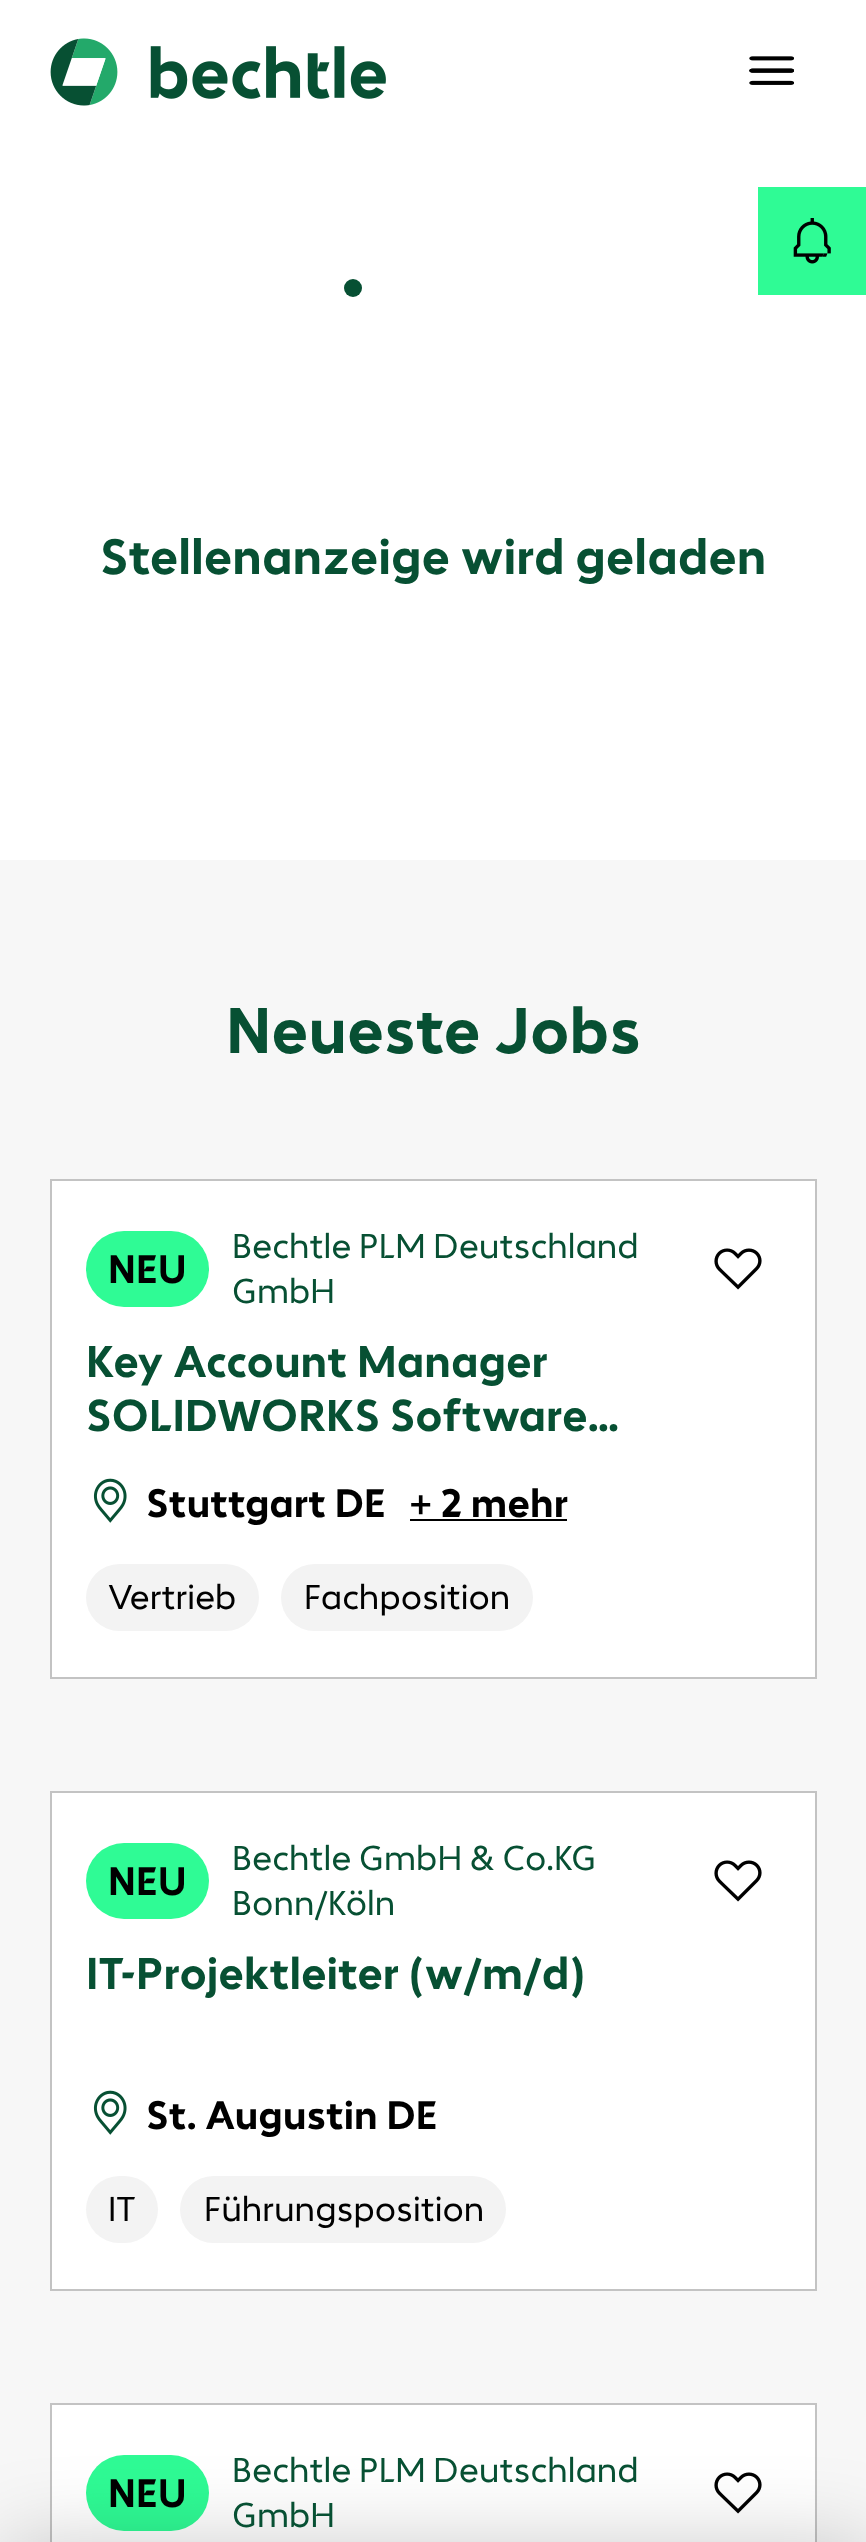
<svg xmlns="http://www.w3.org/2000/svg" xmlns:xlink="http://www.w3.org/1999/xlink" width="866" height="2542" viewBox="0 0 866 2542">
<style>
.cls-1{font:bold 45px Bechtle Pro;fill:#075033}
.cls-2{font:bold 58.5px Bechtle Pro;fill:#075033}
.cls-3{font:bold 36px Bechtle Pro;fill:#000000}
.cls-4{font:31.5px Bechtle Pro;fill:#075033}
.cls-5{font:bold 40.5px Bechtle Pro;fill:#075033}
.cls-6{font:31.5px Bechtle Pro;fill:#000000}
</style>
<rect width="100%" height="100%" fill="#ffffff"/>
<image xlink:href="image0.png" x="50" y="38" width="336" height="68"/>
<image xlink:href="image1.png" x="749" y="56" width="45" height="29"/>
<rect fill="#2ffb95" x="758" y="187" width="108" height="108"/>
<image xlink:href="image2.png" x="793" y="218" width="38" height="46"/>
<circle fill="#075033" cx="353" cy="288" r="9"/>
<rect fill="#f7f7f7" x="0" y="860" width="866" height="1682"/>
<rect fill="#ffffff" stroke="#c3c3c3" stroke-width="2" x="51" y="1180" width="765" height="498"/>
<rect fill="#2ffb95" x="86" y="1231" width="123" height="76" rx="38"/>
<image xlink:href="image3.png" x="714" y="1248" width="48" height="42"/>
<image xlink:href="image4.png" x="93" y="1478" width="34" height="45"/>
<rect fill="#000000" x="410" y="1519" width="157" height="2"/>
<rect fill="#f3f3f3" x="86" y="1564" width="173" height="67" rx="33.5"/>
<rect fill="#f3f3f3" x="281" y="1564" width="252" height="67" rx="33.5"/>
<rect fill="#ffffff" stroke="#c3c3c3" stroke-width="2" x="51" y="1792" width="765" height="498"/>
<rect fill="#2ffb95" x="86" y="1843" width="123" height="76" rx="38"/>
<image xlink:href="image3.png" x="714" y="1860" width="48" height="42"/>
<image xlink:href="image4.png" x="93" y="2090" width="34" height="45"/>
<rect fill="#f3f3f3" x="86" y="2176" width="72" height="67" rx="33.5"/>
<rect fill="#f3f3f3" x="180" y="2176" width="326" height="67" rx="33.5"/>
<rect fill="#ffffff" stroke="#c3c3c3" stroke-width="2" x="51" y="2404" width="765" height="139"/>
<rect fill="#2ffb95" x="86" y="2455" width="123" height="76" rx="38"/>
<image xlink:href="image3.png" x="714" y="2472" width="48" height="42"/>
<rect fill="#000000" fill-opacity="0.2" filter="blur(41.5px)" x="5" y="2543" width="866" height="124"/>
<text class="cls-1" x="100" y="574">Stellenanzeige wird geladen</text>
<text class="cls-2" x="226" y="1053">Neueste Jobs</text>
<text class="cls-3" x="108" y="1283">NEU</text>
<text class="cls-4"><tspan x="232" y="1258">Bechtle PLM Deutschland</tspan><tspan x="232" y="1303">GmbH</tspan></text>
<text class="cls-5"><tspan x="86" y="1377">Key Account Manager</tspan><tspan x="86" y="1431">SOLIDWORKS Software…</tspan></text>
<text class="cls-3" x="146" y="1517">Stuttgart DE</text>
<text class="cls-3" x="409" y="1517">+ 2 mehr</text>
<text class="cls-6" x="108" y="1609">Vertrieb</text>
<text class="cls-6" x="304" y="1609">Fachposition</text>
<text class="cls-3" x="108" y="1895">NEU</text>
<text class="cls-4"><tspan x="232" y="1870">Bechtle GmbH &amp; Co.KG</tspan><tspan x="232" y="1915">Bonn/Köln</tspan></text>
<text class="cls-5" x="86" y="1989">IT-Projektleiter (w/m/d)</text>
<text class="cls-3" x="146" y="2129">St. Augustin DE</text>
<text class="cls-6" x="108" y="2221">IT</text>
<text class="cls-6" x="204" y="2221">Führungsposition</text>
<text class="cls-3" x="108" y="2507">NEU</text>
<text class="cls-4"><tspan x="232" y="2482">Bechtle PLM Deutschland</tspan><tspan x="232" y="2527">GmbH</tspan></text>
</svg>
